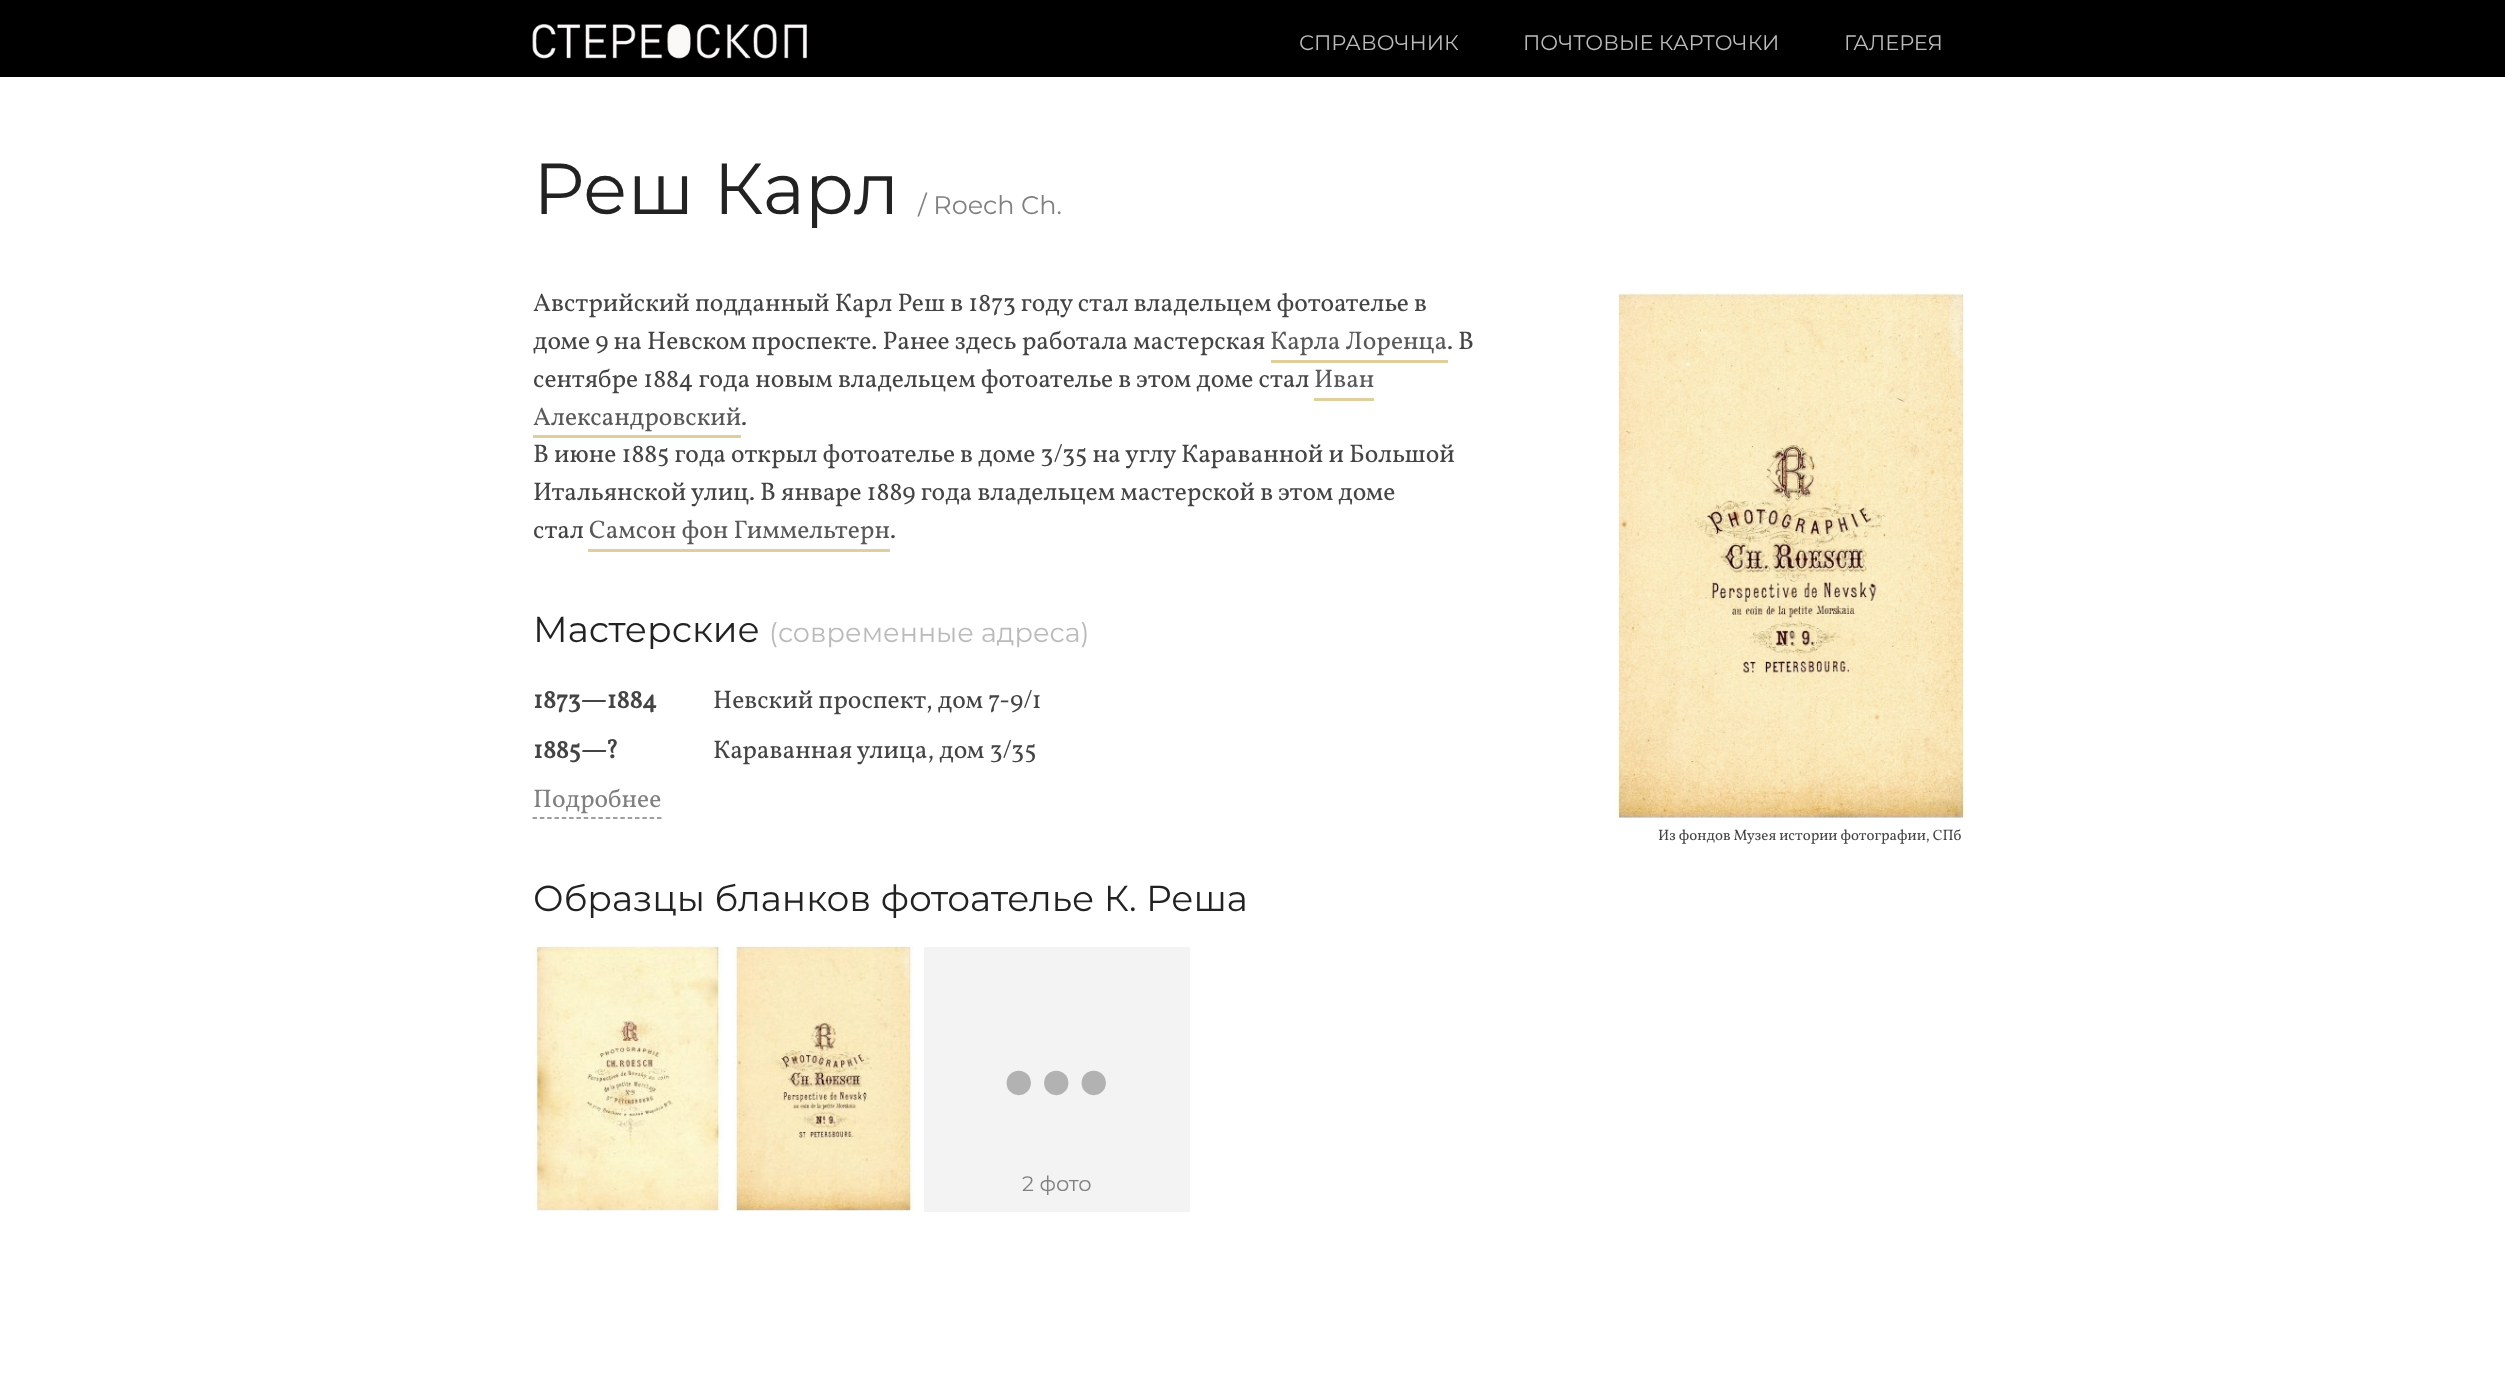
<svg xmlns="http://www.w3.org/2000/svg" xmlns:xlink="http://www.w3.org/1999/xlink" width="2505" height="1380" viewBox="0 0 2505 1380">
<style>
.cls-1{font:21px Montserrat;fill:#bbbbbb}
.cls-2{font:72px Montserrat;fill:#222222}
.cls-3{font:25.5px Montserrat;fill:#808080}
.cls-4{font:25.5px Vollkorn;fill:#444444}
.cls-5{font:25.5px Vollkorn;fill:#595959}
.cls-6{font:36px Montserrat;fill:#222222}
.cls-7{font:27px Montserrat;fill:#bbbbbb}
.cls-8{font:bold 25.5px Vollkorn;fill:#444444}
.cls-9{font:25.5px Vollkorn;fill:#808080}
.cls-10{font:bold 150px Liberation Serif;fill:#b2b2b2}
.cls-11{font:21px Montserrat;fill:#808080}
.cls-12{font:15px Vollkorn;fill:#444444}
</style>
<rect width="100%" height="100%" fill="#ffffff"/>
<rect fill="#000000" x="0" y="0" width="2505" height="77"/>
<image xlink:href="image0.png" x="532" y="24" width="275" height="35"/>
<rect fill="#e0ce9c" x="1271" y="360" width="177" height="3"/>
<rect fill="#e0ce9c" x="1314" y="398" width="60" height="3"/>
<rect fill="#e0ce9c" x="533" y="435" width="208" height="3"/>
<rect fill="#e0ce9c" x="588" y="549" width="302" height="3"/>
<path fill="none" stroke="#808080" stroke-width="1.5" stroke-dasharray="4.5 2.82" d="M532.5 818H661.5"/>
<image xlink:href="image1.png" x="533" y="946" width="190" height="265"/>
<image xlink:href="image2.png" x="732" y="946" width="182" height="265"/>
<rect fill="#f3f3f3" x="924" y="947" width="266" height="265"/>
<image xlink:href="image3.png" x="1615" y="291" width="352" height="527"/>
<text class="cls-1" x="1299" y="50">СПРАВОЧНИК</text>
<text class="cls-1" x="1523" y="50">ПОЧТОВЫЕ КАРТОЧКИ</text>
<text class="cls-1" x="1844" y="50">ГАЛЕРЕЯ</text>
<text class="cls-2" x="533" y="214">Реш Карл</text>
<text class="cls-3" x="918" y="214">/ Roech Ch.</text>
<text class="cls-4"><tspan x="533" y="311">Австрийский подданный Карл Реш в 1873 году стал владельцем фотоателье в</tspan><tspan x="533" y="349">доме 9 на Невском проспекте. Ранее здесь работала мастерская</tspan></text>
<text class="cls-5" x="1270" y="349">Карла Лоренца</text>
<text class="cls-4" x="1447" y="349">. В</text>
<text class="cls-4" x="533" y="387">сентябре 1884 года новым владельцем фотоателье в этом доме стал</text>
<text class="cls-5" x="1314" y="387">Иван</text>
<text class="cls-5" x="533" y="425">Александровский</text>
<text class="cls-4" x="741" y="425">.</text>
<text class="cls-4"><tspan x="533" y="462">В июне 1885 года открыл фотоателье в доме 3/35 на углу Караванной и Большой</tspan><tspan x="533" y="500">Итальянской улиц. В январе 1889 года владельцем мастерской в этом доме</tspan><tspan x="533" y="538">стал</tspan></text>
<text class="cls-5" x="589" y="538">Самсон фон Гиммельтерн</text>
<text class="cls-4" x="890" y="538">.</text>
<text class="cls-6" x="533" y="642">Мастерские</text>
<text class="cls-7" x="769" y="642">(современные адреса)</text>
<text class="cls-8" x="533" y="708">1873—1884</text>
<text class="cls-4" x="713" y="708">Невский проспект, дом 7-9/1</text>
<text class="cls-8" x="533" y="758">1885—?</text>
<text class="cls-4" x="713" y="758">Караванная улица, дом 3/35</text>
<text class="cls-9" x="533" y="807">Подробнее</text>
<text class="cls-6" x="533" y="911">Образцы бланков фотоателье К. Реша</text>
<text class="cls-10" x="1000" y="1093">...</text>
<text class="cls-11" x="1022" y="1191">2 фото</text>
<text class="cls-12" x="1658" y="840">Из фондов Музея истории фотографии, СПб</text>
</svg>
